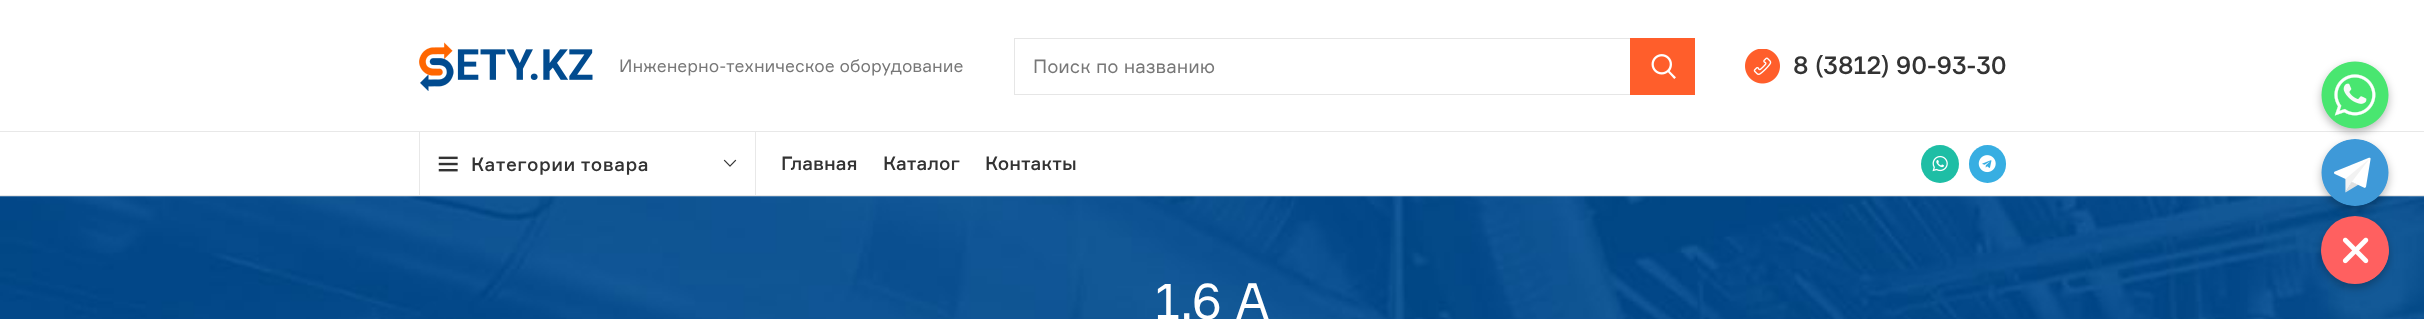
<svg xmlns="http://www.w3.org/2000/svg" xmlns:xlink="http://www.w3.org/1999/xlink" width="2424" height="319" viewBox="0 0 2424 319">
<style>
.cls-1{font:17.5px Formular;fill:#777777}
.cls-2{font:18.75px Formular;fill:#777777}
.cls-3{font:500 25px Formular;fill:#333333}
.cls-4{font:500 18.75px Formular;letter-spacing:0.5px;fill:#333333}
.cls-5{font:500 18.75px Formular;fill:#333333}
.cls-6{font:50px Formular;fill:#ffffff}
</style>
<defs>
<clipPath id="clip1"><path d="M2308 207H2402V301H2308ZM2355 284C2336.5 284 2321 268.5 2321 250C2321 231.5 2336.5 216 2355 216C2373.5 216 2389 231.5 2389 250C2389 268.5 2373.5 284 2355 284Z" clip-rule="evenodd"/></clipPath>
</defs>
<rect width="100%" height="100%" fill="#ffffff"/>
<rect fill="#e8e8e8" x="0" y="131" width="2424" height="1"/>
<image xlink:href="image0.png" x="419" y="42" width="174" height="49"/>
<rect fill="none" stroke="#e6e6e6" x="1014.5" y="38.5" width="680" height="56"/>
<rect fill="#ff5e2b" x="1630" y="38" width="65" height="57"/>
<image xlink:href="image1.png" x="1651" y="54" width="25" height="25"/>
<image xlink:href="image2.png" x="1745" y="49" width="35" height="35"/>
<rect fill="#e8e8e8" x="0" y="195" width="2424" height="1"/>
<rect fill="none" stroke="#e8e8e8" x="419.5" y="131.5" width="336" height="64"/>
<image xlink:href="image3.png" x="438" y="156" width="20" height="16"/>
<image xlink:href="image4.png" x="723" y="159" width="14" height="8"/>
<circle fill="#1ebea5" cx="1940" cy="164" r="19"/>
<image xlink:href="image5.png" x="1932" y="155" width="16" height="17"/>
<rect fill="#37aee2" x="1969" y="145" width="37" height="38" rx="18.5"/>
<image xlink:href="image6.png" x="1978" y="155" width="18" height="18"/>
<image xlink:href="image7.png" x="0" y="196" width="2424" height="123"/>
<rect fill="#000000" fill-opacity="0.25" filter="blur(4px)" x="2321" y="65" width="68" height="68" rx="34"/>
<image xlink:href="image8.png" x="2321" y="61" width="68" height="68"/>
<rect fill="#000000" fill-opacity="0.25" filter="blur(4px)" x="2321" y="143" width="68" height="67" rx="33.5"/>
<image xlink:href="image9.png" x="2321" y="139" width="68" height="67"/>
<circle fill="#ff6060" cx="2355" cy="250" r="34"/>
<g clip-path="url(#clip1)">
<rect fill="#000000" fill-opacity="0.25" filter="blur(4px)" x="2321" y="220" width="68" height="68" rx="34"/>
</g>
<image xlink:href="image10.png" x="2342" y="237" width="47" height="47"/>
<text class="cls-1" x="619" y="72">Инженерно-техническое оборудование</text>
<text class="cls-2" x="1033" y="73">Поиск по названию</text>
<text class="cls-3" x="1793" y="74">8 (3812) 90-93-30</text>
<text class="cls-4" x="471" y="171">Категории товара</text>
<text class="cls-5" x="781" y="170">Главная</text>
<text class="cls-5" x="883" y="170">Каталог</text>
<text class="cls-5" x="985" y="170">Контакты</text>
<text class="cls-6" x="1155" y="319">1,6 А</text>
</svg>
